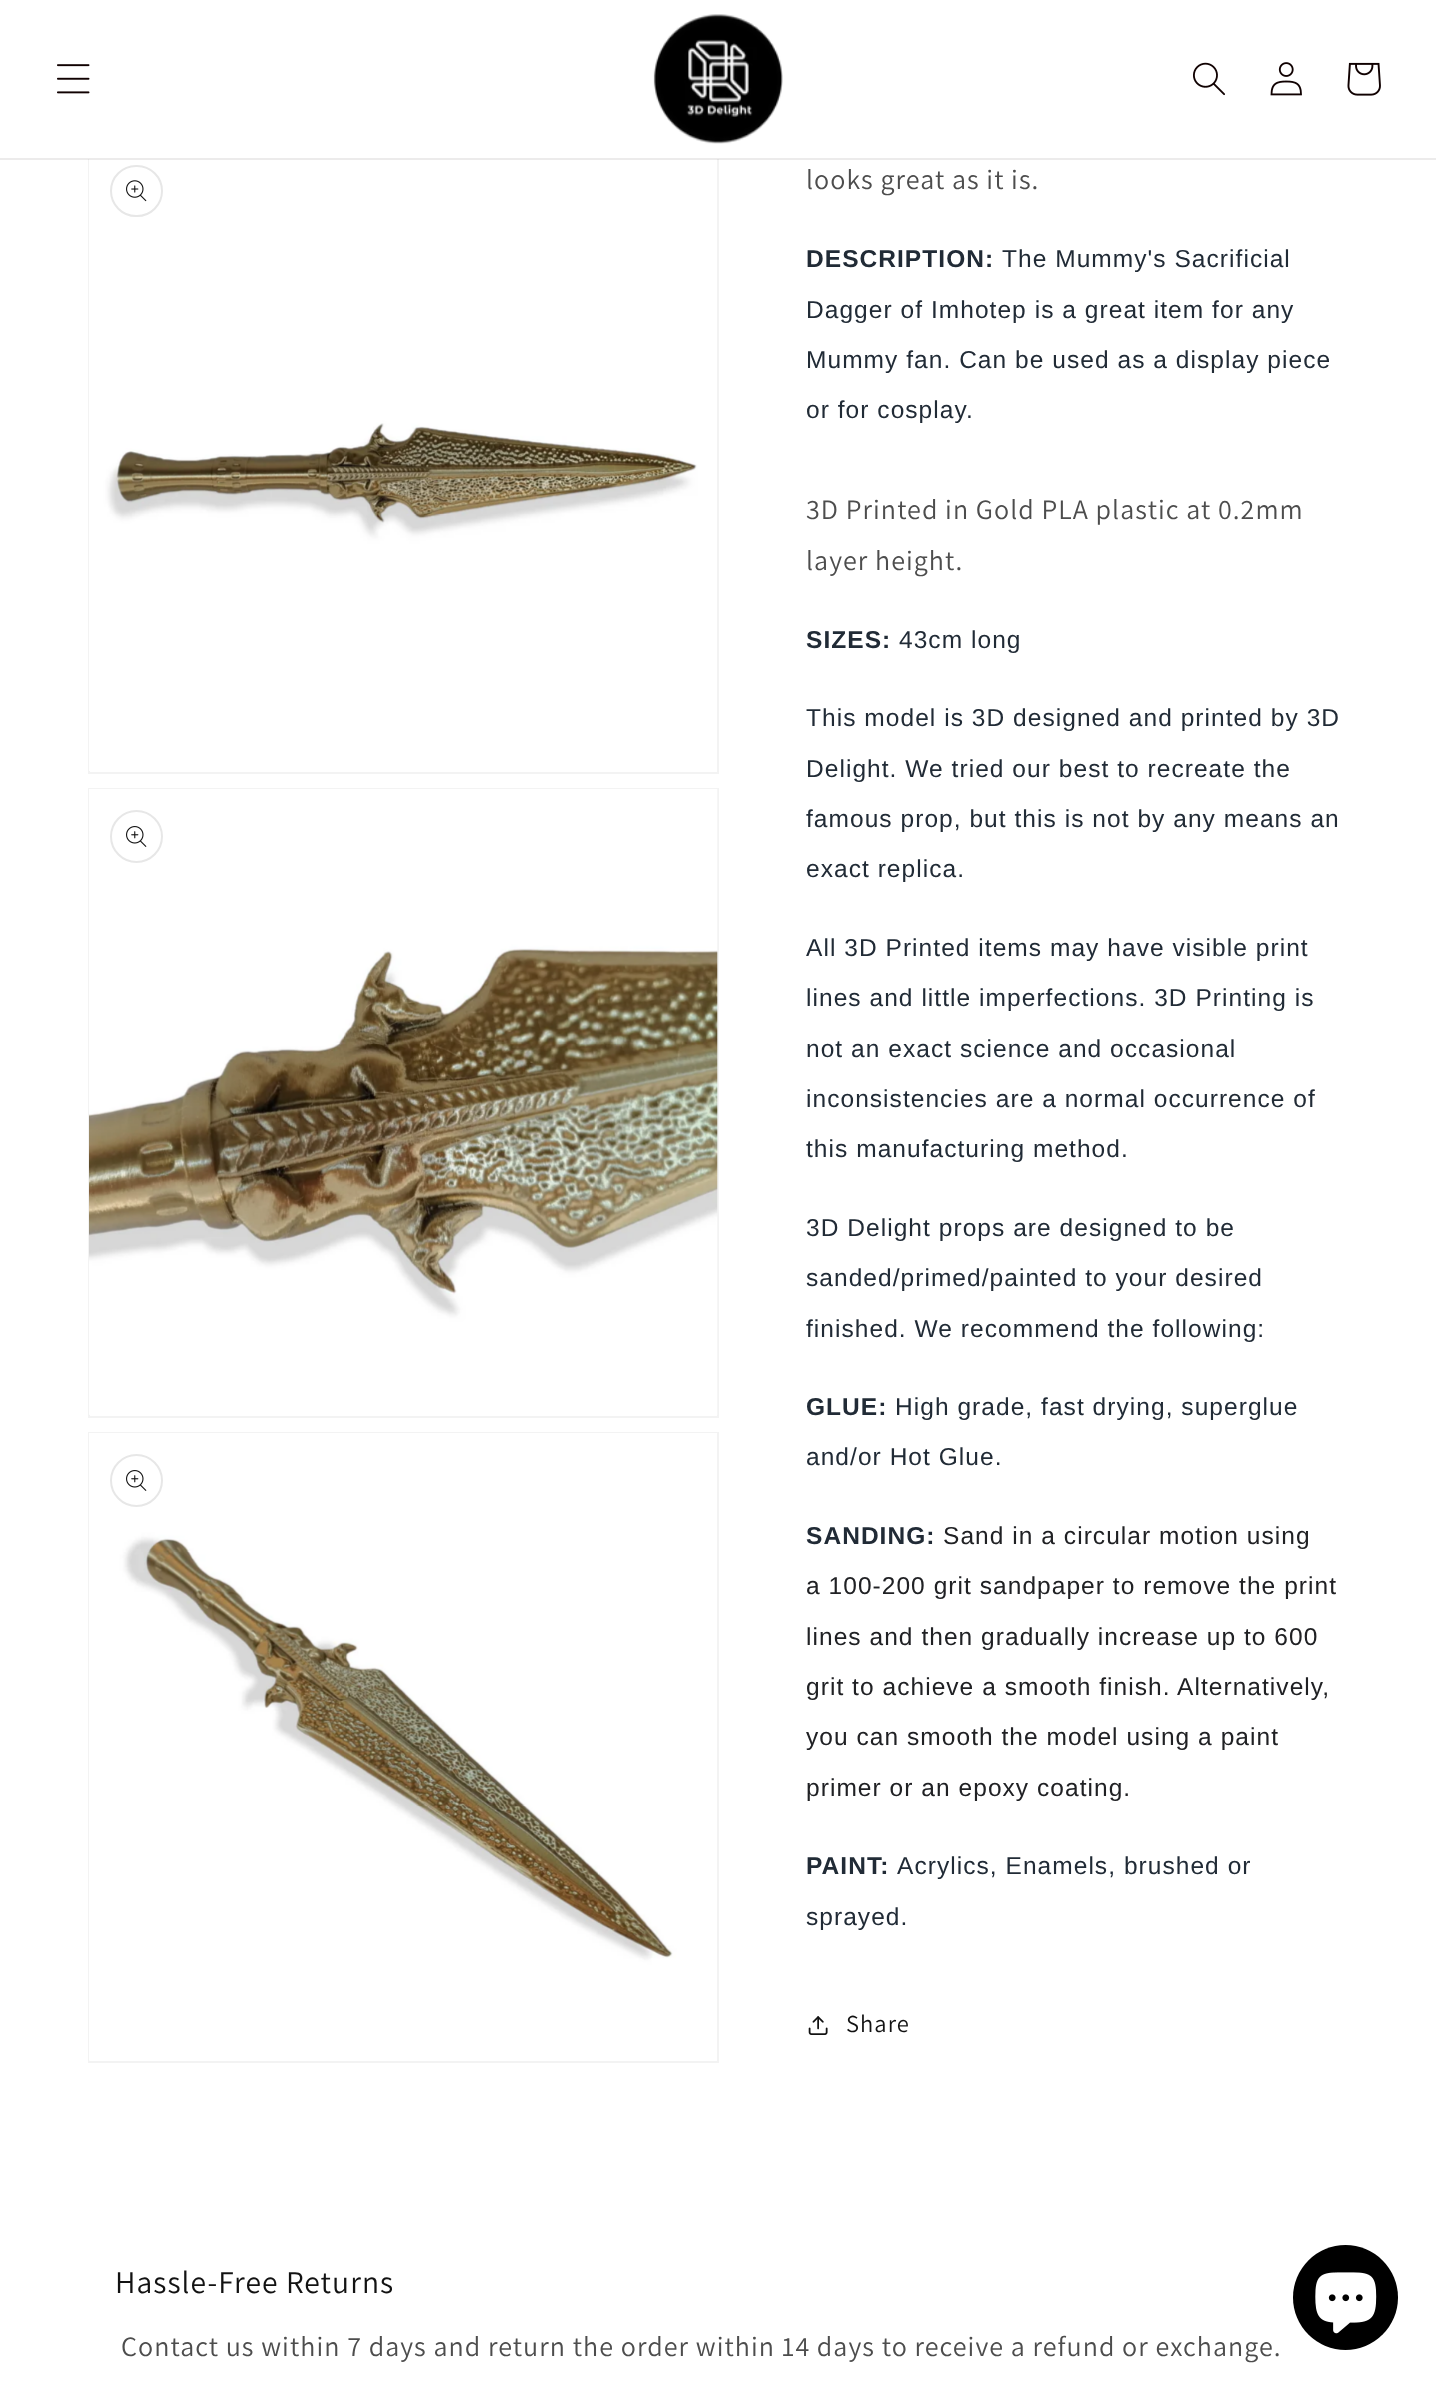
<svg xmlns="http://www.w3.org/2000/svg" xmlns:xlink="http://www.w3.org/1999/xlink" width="1436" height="2386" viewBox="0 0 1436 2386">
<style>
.cls-1{font:28px Assistant;letter-spacing:1.05px;fill:#4d4d4d}
.cls-2{font:bold 24.5px Liberation Sans;letter-spacing:1.05px;fill:#212b36}
.cls-3{font:24.5px Liberation Sans;letter-spacing:1.05px;fill:#212b36}
.cls-4{font:24.5px Liberation Sans;letter-spacing:1.05px;fill:#202124}
.cls-5{font:24.5px Assistant;letter-spacing:1.05px;fill:#121212}
.cls-6{font:31.5px Assistant;letter-spacing:1.05px;fill:#121212}
</style>
<rect width="100%" height="100%" fill="#ffffff"/>
<rect fill="none" stroke="#f3f3f3" stroke-width="2" x="89" y="143" width="629" height="630"/>
<rect fill="#ffffff" x="88" y="142" width="631" height="17"/>
<image xlink:href="image5.png" x="89" y="159" width="628" height="612"/>
<rect fill="#100101" fill-opacity="0.08" x="0" y="158" width="1436" height="2"/>
<image xlink:href="image0.png" x="57" y="64" width="33" height="30"/>
<image xlink:href="image1.png" x="653" y="14" width="130" height="130"/>
<image xlink:href="image2.png" x="1193" y="62" width="32" height="34"/>
<image xlink:href="image3.png" x="1270" y="62" width="32" height="34"/>
<image xlink:href="image4.png" x="1347" y="62" width="34" height="34"/>
<rect fill="none" stroke="#e7e7e7" stroke-width="2" x="111" y="166" width="51" height="50" rx="25"/>
<image xlink:href="image6.png" x="126" y="180" width="21" height="22"/>
<rect fill="none" stroke="#f3f3f3" stroke-width="2" x="89" y="789" width="629" height="628"/>
<image xlink:href="image7.png" x="89" y="789" width="629" height="626"/>
<circle fill="none" stroke="#e7e7e7" stroke-width="2" cx="136.5" cy="836.5" r="25.5"/>
<image xlink:href="image8.png" x="126" y="826" width="21" height="21"/>
<rect fill="none" stroke="#f3f3f3" stroke-width="2" x="89" y="1433" width="629" height="629"/>
<image xlink:href="image9.png" x="89" y="1433" width="628" height="628"/>
<circle fill="none" stroke="#e7e7e7" stroke-width="2" cx="136.5" cy="1480.5" r="25.5"/>
<image xlink:href="image8.png" x="126" y="1470" width="21" height="21"/>
<image xlink:href="image10.png" x="808" y="2016" width="20" height="19"/>
<circle fill="#000000" cx="1345.5" cy="2297.5" r="52.5"/>
<image xlink:href="image11.png" x="1315" y="2272" width="62" height="62"/>
<text class="cls-1" x="806" y="189">looks great as it is.</text>
<text class="cls-2" x="806" y="267">DESCRIPTION:</text>
<text class="cls-3" x="1002" y="267">The Mummy's Sacrificial</text>
<text class="cls-3" x="806" y="318">Dagger of Imhotep is a great item for any</text>
<text class="cls-3" x="806" y="368">Mummy fan. Can be used as a display piece</text>
<text class="cls-3" x="806" y="418">or for cosplay.</text>
<text class="cls-1"><tspan x="806" y="519">3D Printed in Gold PLA plastic at 0.2mm</tspan><tspan x="806" y="570">layer height.</tspan></text>
<text class="cls-2" x="806" y="648">SIZES:</text>
<text class="cls-3" x="899" y="648">43cm long</text>
<text class="cls-3" x="806" y="726">This model is 3D designed and printed by 3D</text>
<text class="cls-3" x="806" y="777">Delight. We tried our best to recreate the</text>
<text class="cls-3" x="806" y="827">famous prop, but this is not by any means an</text>
<text class="cls-3" x="806" y="877">exact replica.</text>
<text class="cls-3" x="806" y="956">All 3D Printed items may have visible print</text>
<text class="cls-3" x="806" y="1006">lines and little imperfections. 3D Printing is</text>
<text class="cls-3" x="806" y="1057">not an exact science and occasional</text>
<text class="cls-3" x="806" y="1107">inconsistencies are a normal occurrence of</text>
<text class="cls-3" x="806" y="1157">this manufacturing method.</text>
<text class="cls-3" x="806" y="1236">3D Delight props are designed to be</text>
<text class="cls-3" x="806" y="1286">sanded/primed/painted to your desired</text>
<text class="cls-3" x="806" y="1337">finished. We recommend the following:</text>
<text class="cls-2" x="806" y="1415">GLUE:</text>
<text class="cls-3" x="895" y="1415">High grade, fast drying, superglue</text>
<text class="cls-3" x="806" y="1465">and/or Hot Glue.</text>
<text class="cls-2" x="806" y="1544">SANDING:</text>
<text class="cls-4" x="943" y="1544">Sand in a circular motion using</text>
<text class="cls-4" x="806" y="1594">a 100-200 grit sandpaper to remove the print</text>
<text class="cls-4" x="806" y="1645">lines and then gradually increase up to 600</text>
<text class="cls-4" x="806" y="1695">grit to achieve a smooth finish. Alternatively,</text>
<text class="cls-4" x="806" y="1745">you can smooth the model using a paint</text>
<text class="cls-4" x="806" y="1796">primer or an epoxy coating.</text>
<text class="cls-2" x="806" y="1874">PAINT:</text>
<text class="cls-3" x="897" y="1874">Acrylics, Enamels, brushed or</text>
<text class="cls-3" x="806" y="1925">sprayed.</text>
<text class="cls-5" x="846" y="2032">Share</text>
<text class="cls-6" x="115" y="2293">Hassle-Free Returns</text>
<text class="cls-1" x="121" y="2356">Contact us within 7 days and return the order within 14 days to receive a refund or exchange.</text>
</svg>
